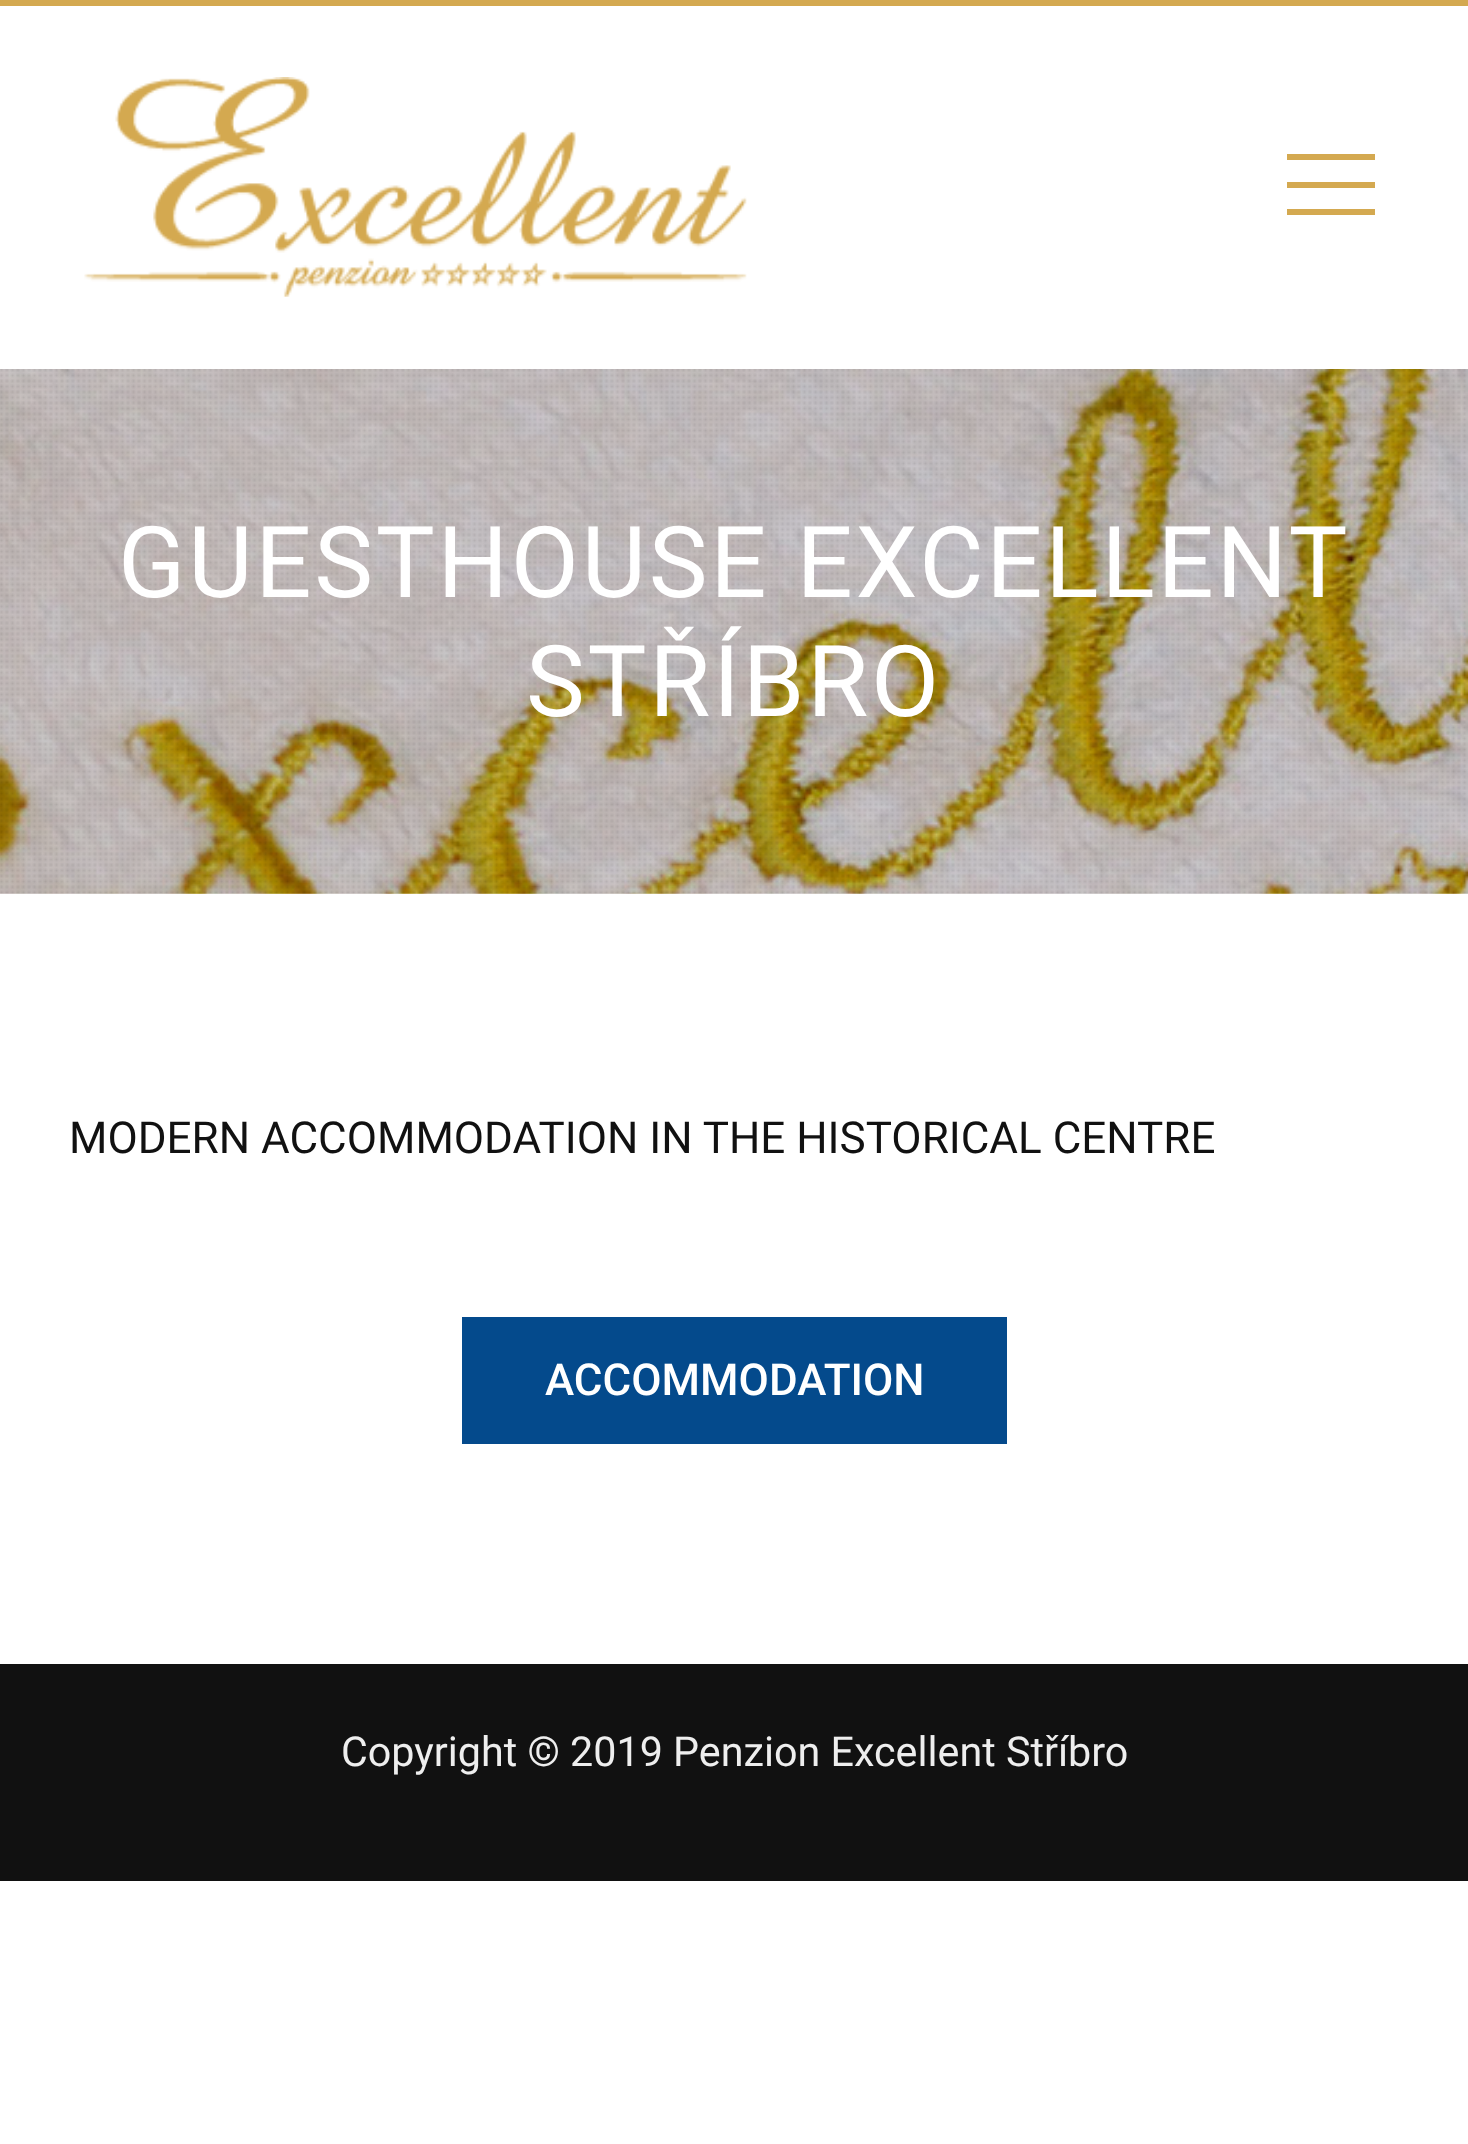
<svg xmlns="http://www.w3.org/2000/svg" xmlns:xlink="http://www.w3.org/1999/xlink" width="1468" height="2144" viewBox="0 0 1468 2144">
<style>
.cls-1{font:99px Roboto;letter-spacing:2.75px;fill:#ffffff}
.cls-2{font:44px Roboto;fill:#111111}
.cls-3{font:500 44px Roboto;fill:#ffffff}
.cls-4{font:41.25px Roboto;fill:#eeeeee}
</style>
<rect width="100%" height="100%" fill="#ffffff"/>
<rect fill="#d4a950" x="0" y="0" width="1468" height="6"/>
<image xlink:href="image0.png" x="84" y="77" width="663" height="220"/>
<rect fill="#d4a950" x="1287" y="154" width="88" height="6"/>
<rect fill="#d4a950" x="1287" y="209" width="88" height="6"/>
<rect fill="#d4a950" x="1287" y="182" width="88" height="6"/>
<image xlink:href="image1.png" x="0" y="369" width="1468" height="525"/>
<image xlink:href="image2.png" x="0" y="369" width="1468" height="525"/>
<rect fill="#044a8c" x="462" y="1317" width="545" height="127"/>
<rect fill="#111111" x="0" y="1664" width="1468" height="217"/>
<text class="cls-1" x="118" y="597">GUESTHOUSE EXCELLENT</text>
<text class="cls-1" x="526" y="716">STŘÍBRO</text>
<text class="cls-2" x="69" y="1153">MODERN ACCOMMODATION IN THE HISTORICAL CENTRE</text>
<text class="cls-3" x="545" y="1395">ACCOMMODATION</text>
<text class="cls-4" x="341" y="1766">Copyright © 2019 Penzion Excellent Stříbro</text>
</svg>
